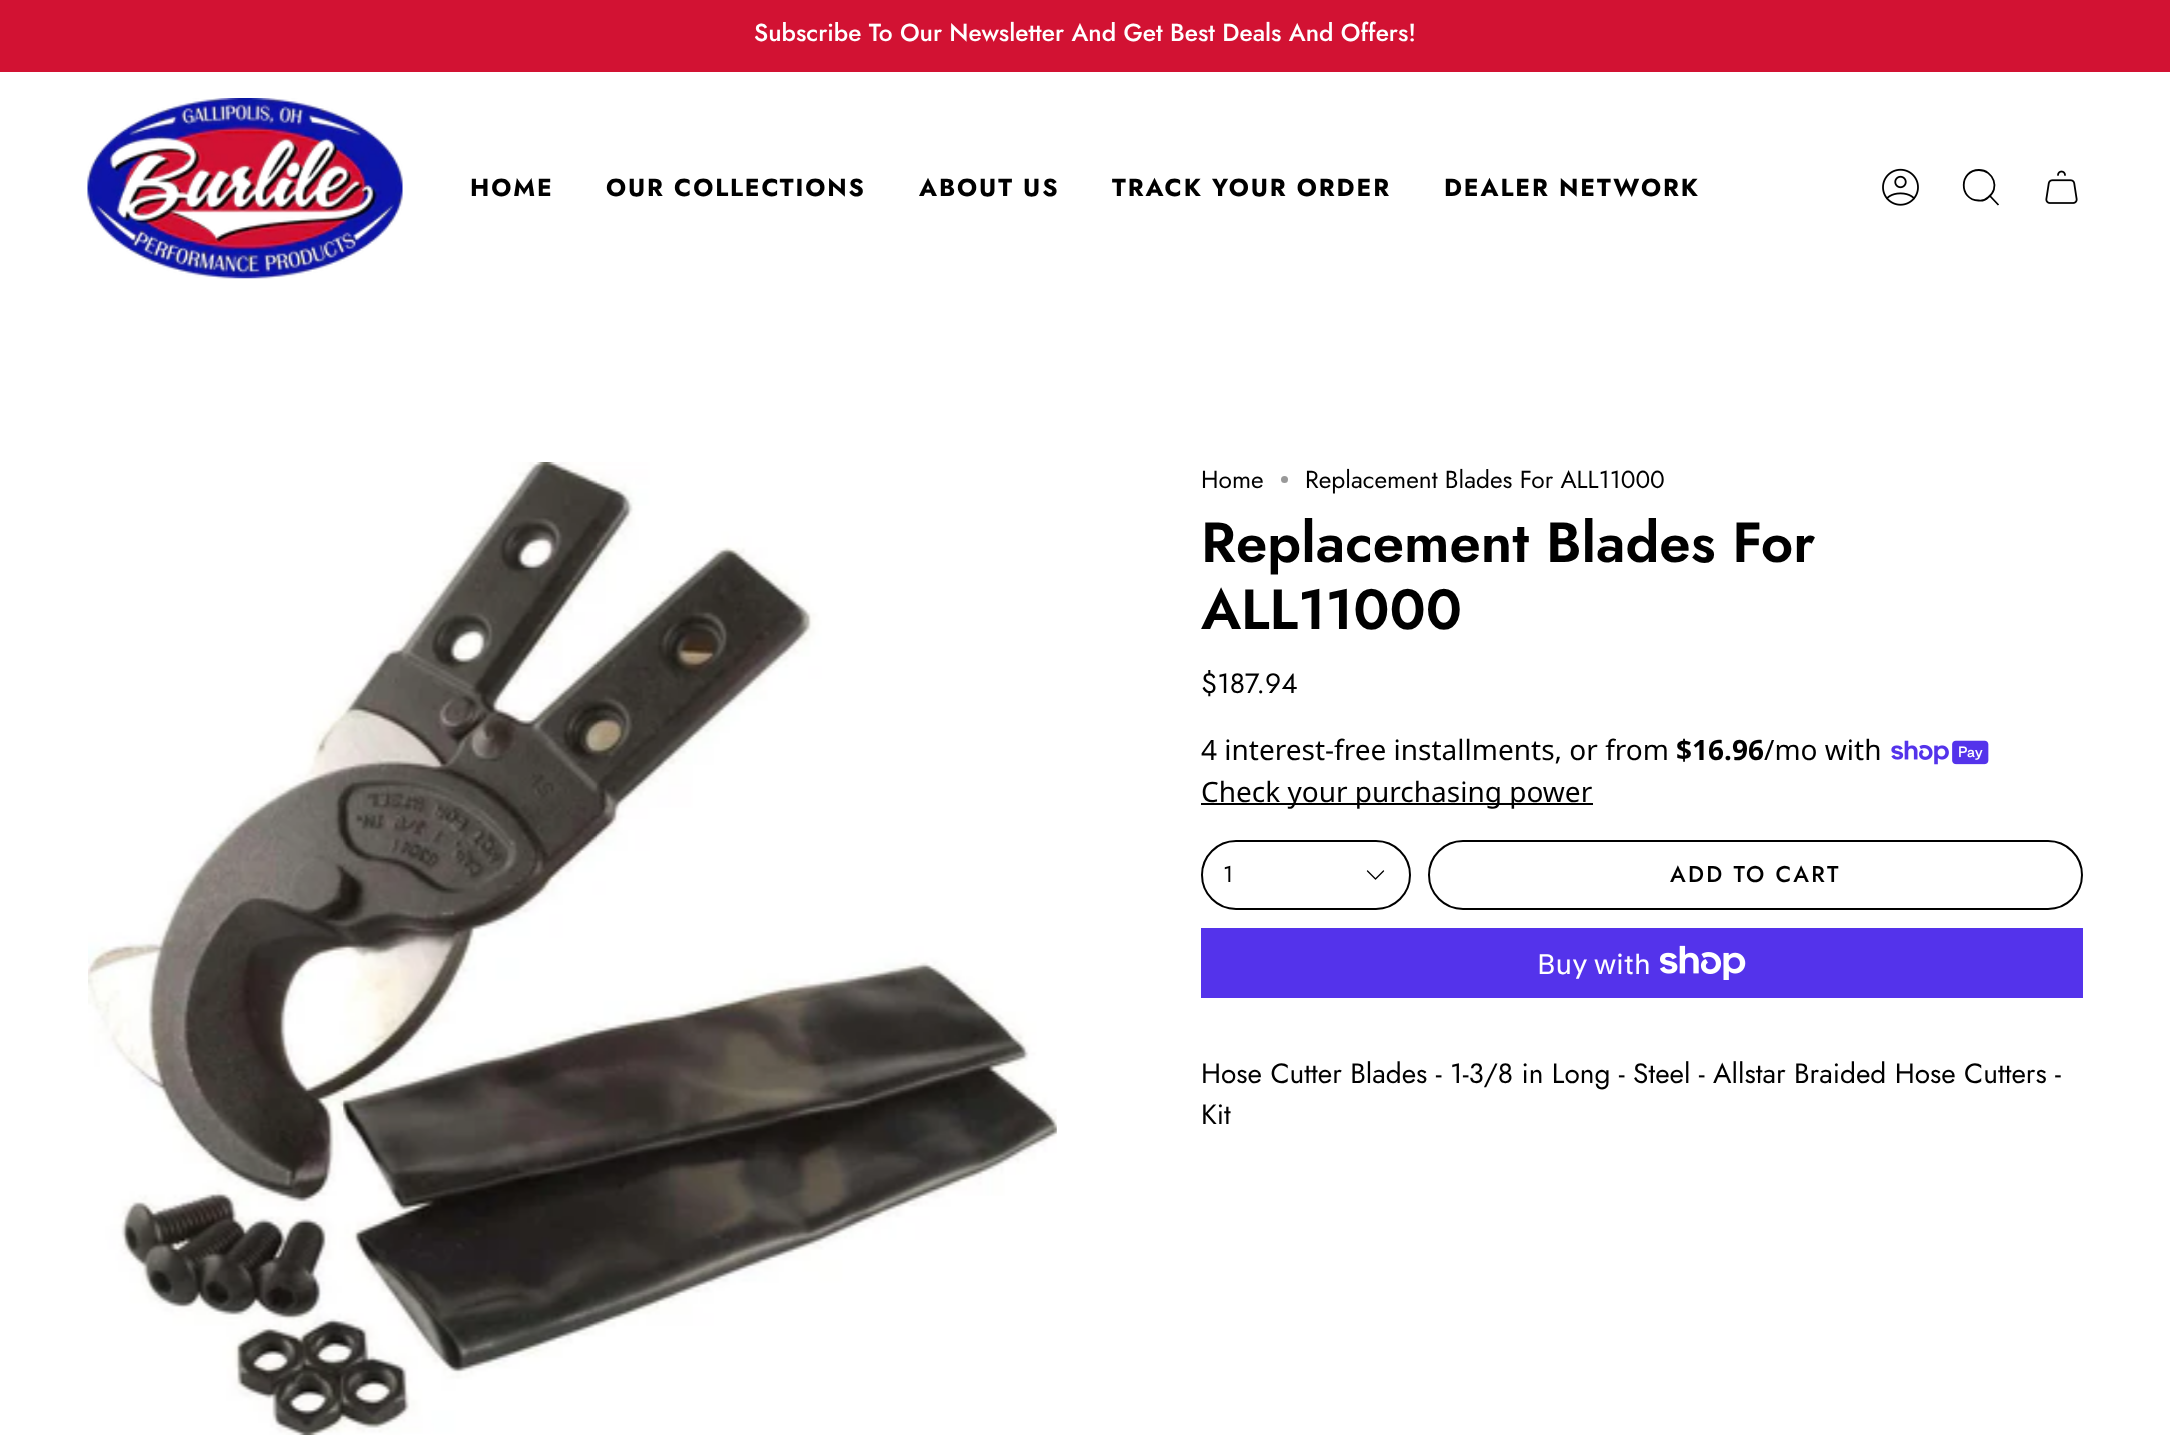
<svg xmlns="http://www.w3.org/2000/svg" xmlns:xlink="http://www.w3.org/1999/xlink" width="2170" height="1436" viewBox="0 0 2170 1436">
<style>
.cls-1{font:500 24.5px Jost;fill:#ffffff}
.cls-2{font:bold 24.5px Jost;letter-spacing:1.9px;fill:#000000}
.cls-3{font:24.5px Jost;fill:#000000}
.cls-4{font:600 56.4px Jost;fill:#000000}
.cls-5{font:28px Jost;fill:#000000}
.cls-6{font:28px Noto Sans;fill:#000000}
.cls-7{font:bold 28px Noto Sans;fill:#000000}
.cls-8{font:22.75px Jost;fill:#000000}
.cls-9{font:500 22.75px Jost;letter-spacing:2.25px;fill:#000000}
.cls-10{font:28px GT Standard;fill:#ffffff}
</style>
<rect width="100%" height="100%" fill="#ffffff"/>
<rect fill="#d21233" x="0" y="0" width="2170" height="72"/>
<image xlink:href="image0.png" x="87" y="98" width="316" height="181"/>
<image xlink:href="image1.png" x="1882" y="168" width="37" height="38"/>
<path fill="none" stroke="#000000" stroke-width="1.8" d="M1979 170C1993.5 170 2000.5 189 1988 197.5C1985.5 200 1982 201 1978.5 200.5C1958.5 200 1959 170 1979 170ZM1990 196L1998.5 205"/>
<image xlink:href="image2.png" x="2045" y="170" width="33" height="34"/>
<image xlink:href="image3.png" x="88" y="462" width="969" height="973"/>
<circle fill="#999999" cx="1284.5" cy="479.5" r="3.5"/>
<image xlink:href="image4.png" x="1891" y="740" width="98" height="25"/>
<rect fill="#000000" x="1201" y="803" width="392" height="2"/>
<rect fill="none" stroke="#000000" stroke-width="2" x="1202" y="841" width="208" height="68" rx="34"/>
<path fill="none" stroke="#000000" stroke-width="1.3" stroke-linecap="round" stroke-linejoin="round" d="M1367.5 871L1375.5 879L1383.5 871"/>
<rect fill="none" stroke="#000000" stroke-width="2" x="1429" y="841" width="653" height="68" rx="34"/>
<rect fill="#5433eb" x="1201" y="928" width="882" height="70"/>
<image xlink:href="image5.png" x="1660" y="945" width="86" height="35"/>
<text class="cls-1" x="754" y="41">Subscribe To Our Newsletter And Get Best Deals And Offers!</text>
<text class="cls-2" x="470" y="196">HOME</text>
<text class="cls-2" x="606" y="196">OUR COLLECTIONS</text>
<text class="cls-2" x="919" y="196">ABOUT US</text>
<text class="cls-2" x="1112" y="196">TRACK YOUR ORDER</text>
<text class="cls-2" x="1444" y="196">DEALER NETWORK</text>
<text class="cls-3" x="1201" y="488">Home</text>
<text class="cls-3" x="1305" y="488">Replacement Blades For ALL11000</text>
<text class="cls-4"><tspan x="1201" y="562">Replacement Blades For</tspan><tspan x="1201" y="629">ALL11000</tspan></text>
<text class="cls-5" x="1201" y="693">$187.94</text>
<text class="cls-6" x="1201" y="760">4 interest-free installments, or from</text>
<text class="cls-7" x="1676" y="760">$16.96</text>
<text class="cls-6" x="1764" y="760">/mo with</text>
<text class="cls-6" x="1201" y="802">Check your purchasing power</text>
<text class="cls-8" x="1223" y="882">1</text>
<text class="cls-9" x="1670" y="882">ADD TO CART</text>
<path fill="#ffffff" d="M1741.5 875.5L1743 874.5L1753 884.5L1751.5 885.5Z"/>
<text class="cls-10" x="1537" y="974">Buy with</text>
<text class="cls-5"><tspan x="1201" y="1083">Hose Cutter Blades - 1-3/8 in Long - Steel - Allstar Braided Hose Cutters -</tspan><tspan x="1201" y="1124">Kit</tspan></text>
</svg>
